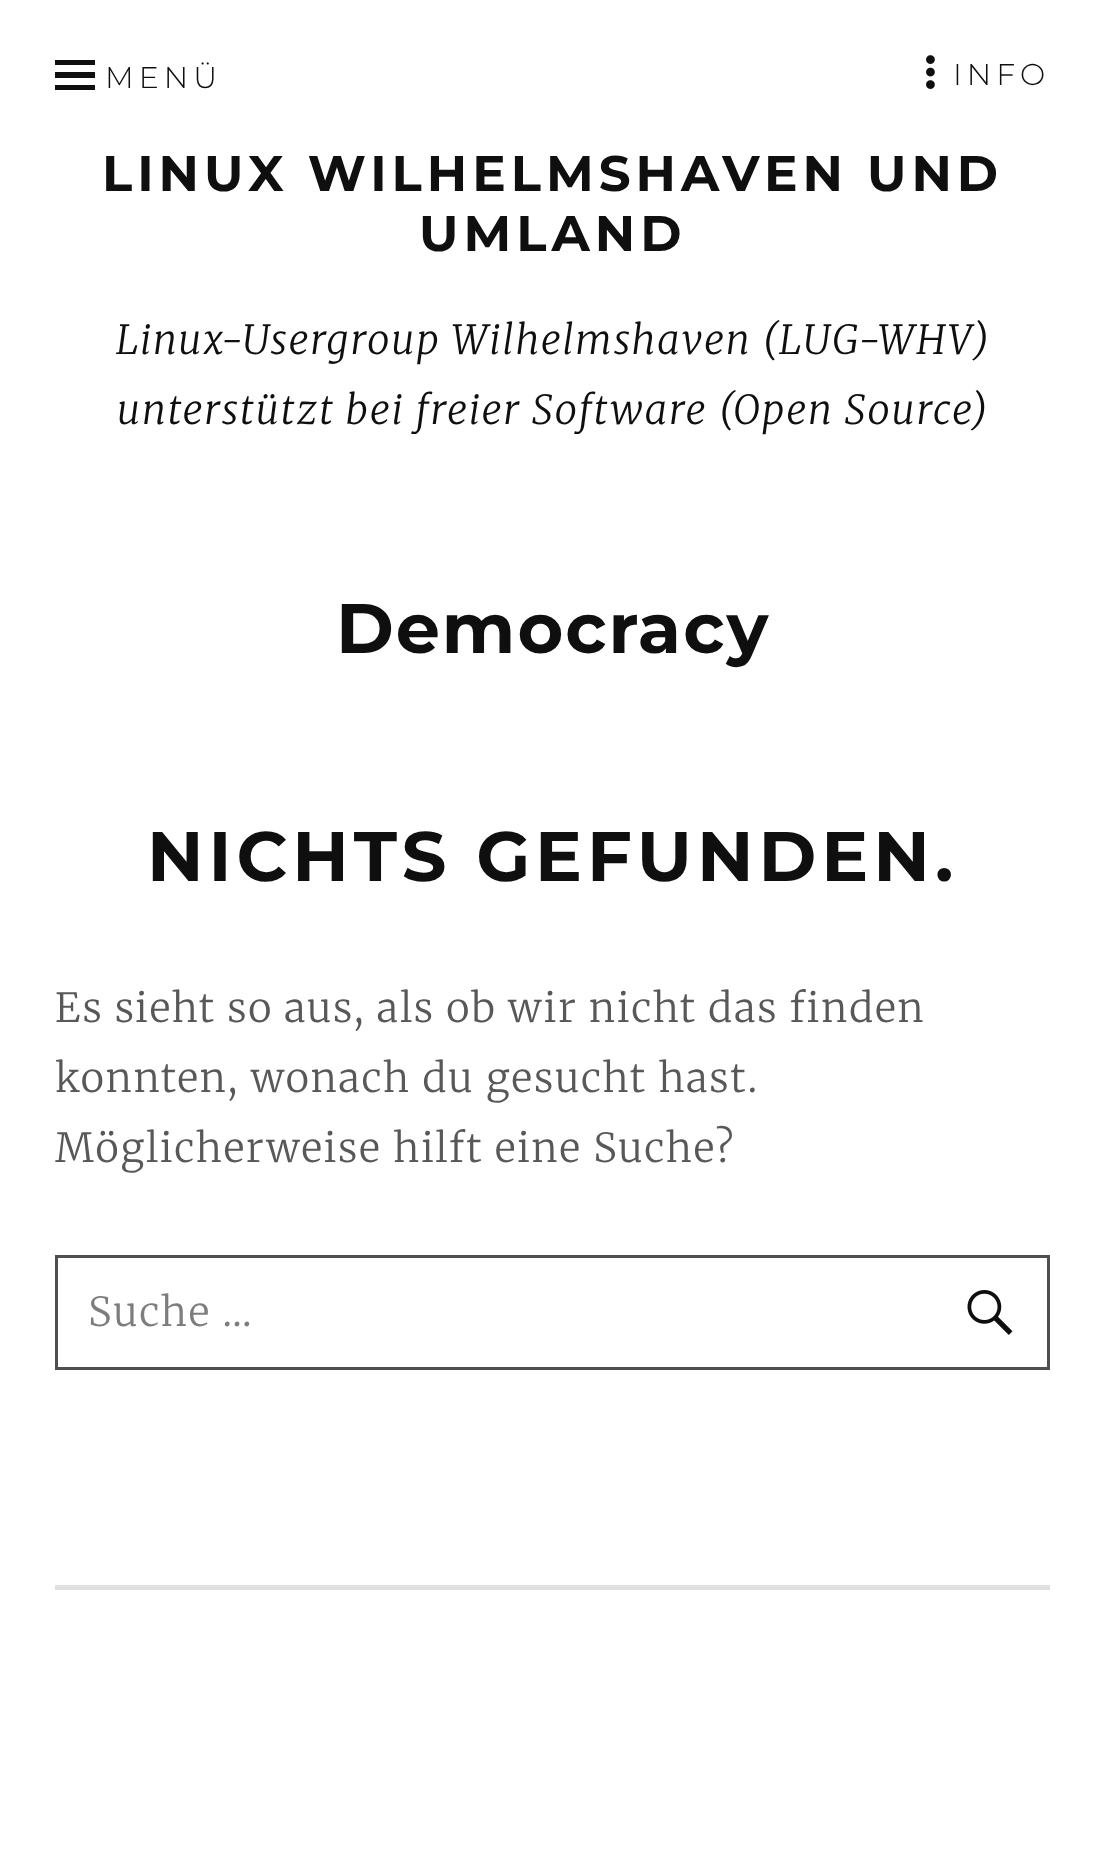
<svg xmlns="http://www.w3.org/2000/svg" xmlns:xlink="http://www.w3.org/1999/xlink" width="1103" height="1874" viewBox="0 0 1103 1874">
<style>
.cls-1{font:300 30px Montserrat;letter-spacing:5px;fill:#0f0f0f}
.cls-2{font:bold 50px Montserrat;letter-spacing:5px;fill:#0f0f0f}
.cls-3{font:italic 300 40px Merriweather;letter-spacing:1.9px;fill:#0f0f0f}
.cls-4{font:bold 70px Montserrat;letter-spacing:1.9px;fill:#0f0f0f}
.cls-5{font:bold 70px Montserrat;letter-spacing:5px;fill:#0f0f0f}
.cls-6{font:300 40px Merriweather;letter-spacing:1.9px;fill:#585858}
.cls-7{font:300 40px Merriweather;letter-spacing:1.9px;fill:#7d7d7d}
</style>
<rect width="100%" height="100%" fill="#ffffff"/>
<path fill="#0f0f0f" d="M55 90V85H95V90ZM55 60H95V65H55ZM55 78V72H95V78Z"/>
<image xlink:href="image0.png" x="926" y="55" width="9" height="34"/>
<rect fill="none" stroke="#4f4f4f" stroke-width="3" x="56.5" y="1256.5" width="992" height="112"/>
<image xlink:href="image1.png" x="967" y="1290" width="46" height="45"/>
<rect fill="#e0e0e0" x="55" y="1585" width="995" height="5"/>
<text class="cls-1" x="105" y="88">MENÜ</text>
<text class="cls-1" x="953" y="85">INFO</text>
<text class="cls-2" x="102" y="191">LINUX WILHELMSHAVEN UND</text>
<text class="cls-2" x="419" y="251">UMLAND</text>
<text class="cls-3" x="116" y="354">Linux-Usergroup Wilhelmshaven (LUG-WHV)</text>
<text class="cls-3" x="117" y="424">unterstützt bei freier Software (Open Source)</text>
<text class="cls-4" x="336" y="653">Democracy</text>
<text class="cls-5" x="147" y="881">NICHTS GEFUNDEN.</text>
<text class="cls-6"><tspan x="55" y="1022">Es sieht so aus, als ob wir nicht das finden</tspan><tspan x="55" y="1092">konnten, wonach du gesucht hast.</tspan><tspan x="55" y="1162">Möglicherweise hilft eine Suche?</tspan></text>
<text class="cls-7" x="88" y="1326">Suche …</text>
</svg>
